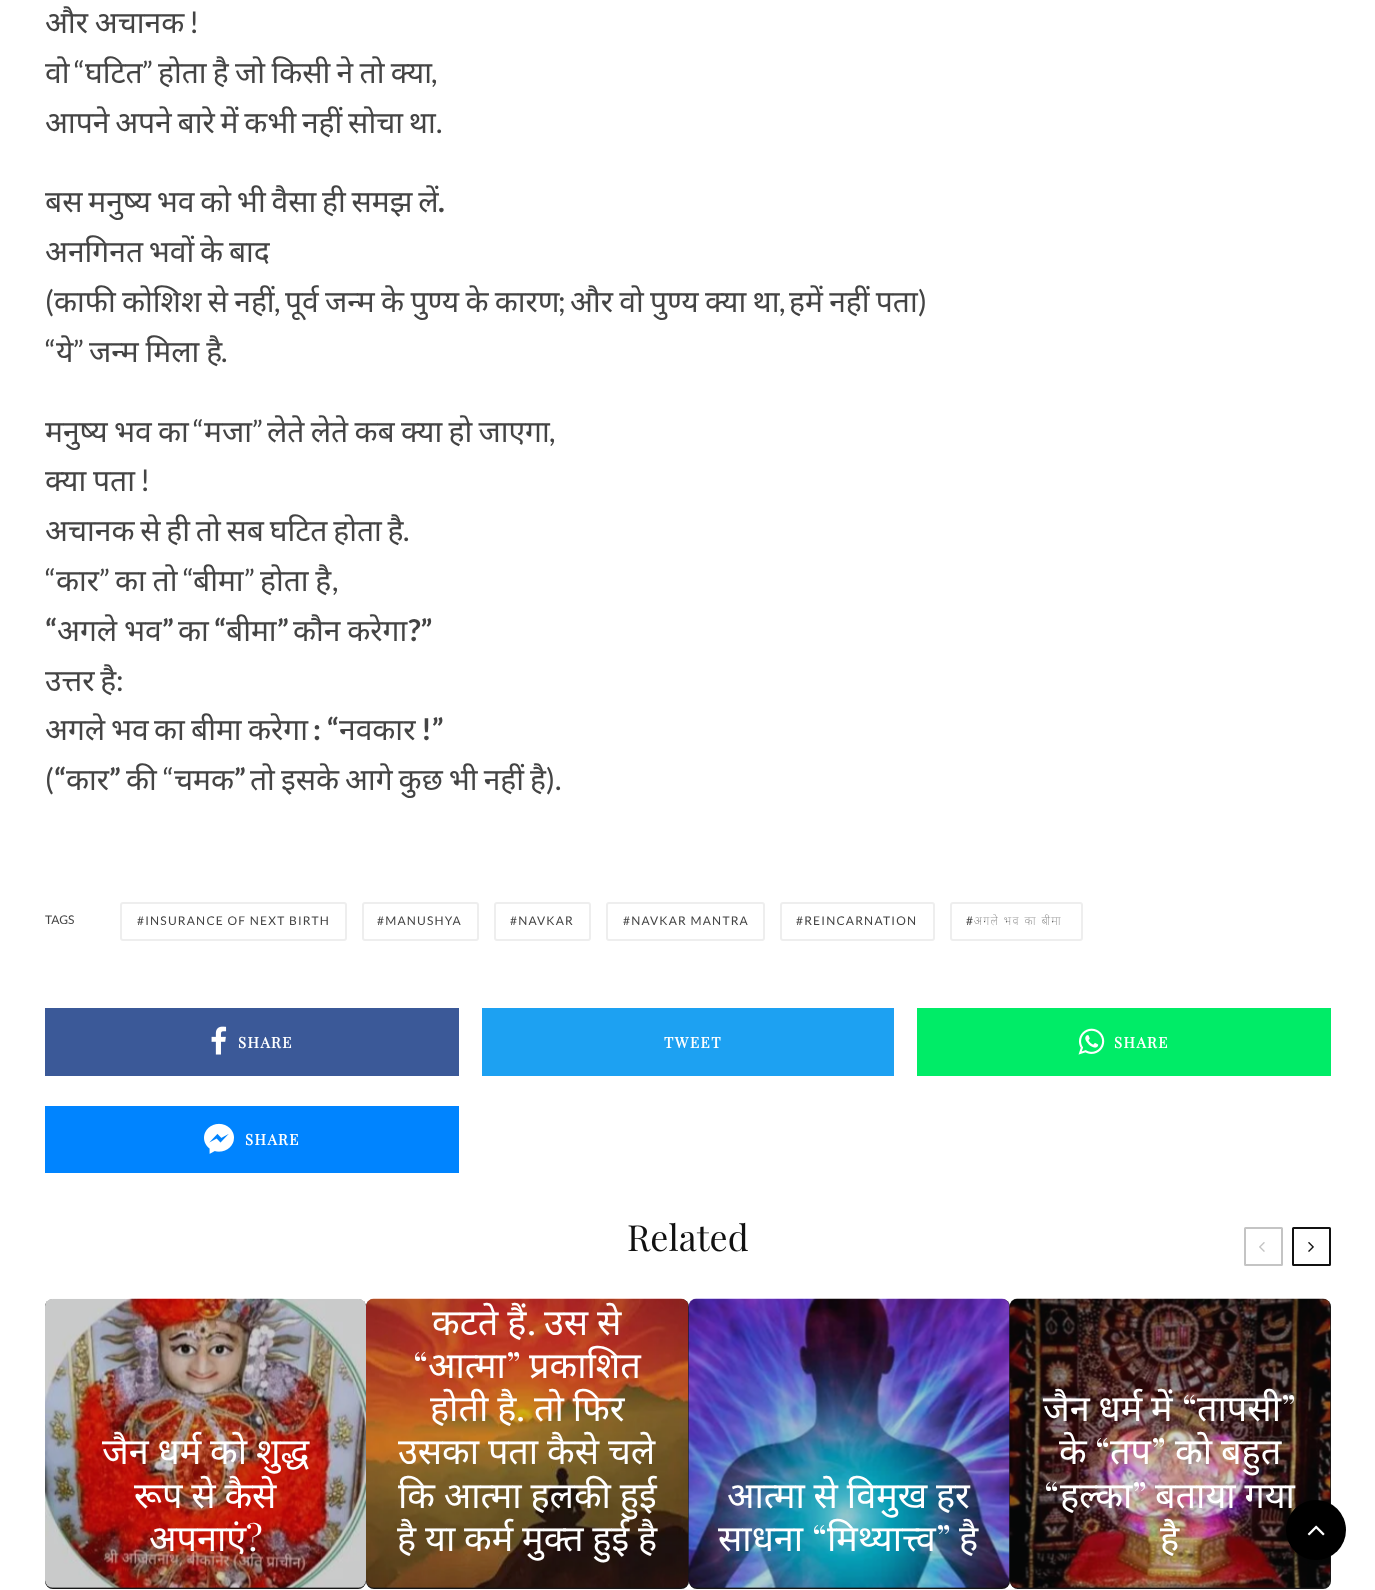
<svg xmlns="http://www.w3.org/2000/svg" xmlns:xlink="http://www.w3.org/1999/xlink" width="1375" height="1590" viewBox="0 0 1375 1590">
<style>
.cls-1{font:30px Noto Sans;fill:#444444}
.cls-2{font:30px Lato;fill:#444444}
.cls-3{font:bold 30px Lato;fill:#444444}
.cls-4{font:12px Lato;fill:#444444}
.cls-5{font:12px Lato;letter-spacing:1.2px;fill:#444444}
.cls-6{font:100 12px Noto Sans;letter-spacing:1.2px;fill:#444444}
.cls-7{font:bold 15px Playfair Display;letter-spacing:1.5px;fill:#ffffff}
.cls-8{font:36px Playfair Display;fill:#111111}
.cls-9{font:36px Noto Sans;fill:#ffffff}
.cls-10{font:36px Playfair Display;fill:#ffffff}
</style>
<rect width="100%" height="100%" fill="#ffffff"/>
<rect fill="none" stroke="#eeeeee" stroke-width="2" x="121" y="903" width="225" height="37" rx="2"/>
<rect fill="none" stroke="#eeeeee" stroke-width="2" x="363" y="903" width="115" height="37" rx="2"/>
<rect fill="none" stroke="#eeeeee" stroke-width="2" x="495" y="903" width="95" height="37" rx="2"/>
<rect fill="none" stroke="#eeeeee" stroke-width="2" x="607" y="903" width="157" height="37" rx="2"/>
<rect fill="none" stroke="#eeeeee" stroke-width="2" x="781" y="903" width="153" height="37" rx="2"/>
<rect fill="none" stroke="#eeeeee" stroke-width="2" x="951" y="903" width="131" height="37" rx="2"/>
<rect fill="#3b5998" x="45" y="1008" width="414" height="68"/>
<image xlink:href="image0.png" x="211" y="1026" width="16" height="29"/>
<rect fill="#1da1f2" x="482" y="1008" width="412" height="68"/>
<rect fill="#00ec67" x="917" y="1008" width="414" height="68"/>
<image xlink:href="image1.png" x="1078" y="1028" width="27" height="27"/>
<rect fill="#0084ff" x="45" y="1106" width="414" height="67"/>
<image xlink:href="image2.png" x="204" y="1123" width="30" height="31"/>
<rect fill="none" stroke="#c4c4c4" stroke-width="2" x="1245" y="1228" width="37" height="37" rx="0.5"/>
<image xlink:href="image3.png" x="1259" y="1242" width="6" height="10"/>
<rect fill="none" stroke="#111111" stroke-width="2" x="1293" y="1228" width="37" height="37" rx="0.5"/>
<image xlink:href="image4.png" x="1308" y="1242" width="6" height="10"/>
<rect fill="#161616" x="45" y="1299" width="321" height="290" rx="8"/>
<image xlink:href="image5.png" x="45" y="1298" width="321" height="290"/>
<rect fill="#1a1d1e" fill-opacity="0.2" x="45" y="1299" width="321" height="290" rx="8"/>
<rect fill="#161616" x="366" y="1299" width="323" height="290" rx="8"/>
<image xlink:href="image6.png" x="366" y="1298" width="323" height="290"/>
<rect fill="#1a1d1e" fill-opacity="0.2" x="366" y="1299" width="323" height="290" rx="8"/>
<rect fill="#161616" x="689" y="1299" width="321" height="290" rx="8"/>
<image xlink:href="image7.png" x="688" y="1298" width="322" height="290"/>
<rect fill="#1a1d1e" fill-opacity="0.2" x="689" y="1299" width="321" height="290" rx="8"/>
<rect fill="#161616" x="1010" y="1299" width="321" height="290" rx="8"/>
<image xlink:href="image8.png" x="1009" y="1298" width="322" height="290"/>
<rect fill="#1a1d1e" fill-opacity="0.2" x="1010" y="1299" width="321" height="290" rx="8"/>
<circle fill="#000000" cx="1316" cy="1530" r="30"/>
<image xlink:href="image9.png" x="1307" y="1525" width="18" height="11"/>
<text class="cls-1" x="45" y="33" word-spacing="-1">और अचानक</text>
<text class="cls-2" x="189" y="33">!</text>
<text class="cls-1" x="45" y="83">वो</text>
<text class="cls-2" x="74" y="83">“</text>
<text class="cls-1" x="85" y="83">घटित</text>
<text class="cls-2" x="142" y="83">”</text>
<text class="cls-1" x="158" y="83" word-spacing="-1.5">होता है जो किसी ने तो क्या</text>
<text class="cls-2" x="431" y="83">,</text>
<text class="cls-1" x="45" y="133" word-spacing="-2">आपने अपने बारे में कभी नहीं सोचा था</text>
<text class="cls-2" x="436" y="133">.</text>
<text class="cls-1" x="45" y="212" word-spacing="-2">बस मनुष्य भव को भी वैसा ही समझ लें</text>
<text class="cls-3" x="438" y="212">.</text>
<text class="cls-1" x="45" y="262" word-spacing="-2">अनगिनत भवों के बाद</text>
<text class="cls-2" x="45" y="312">(</text>
<text class="cls-1" x="54" y="312" word-spacing="-1.5">काफी कोशिश से नहीं</text>
<text class="cls-2" x="558" y="312">;</text>
<text class="cls-1" x="570" y="312" word-spacing="-1.5">और वो पुण्य क्या था</text>
<text class="cls-1" x="789" y="312" word-spacing="-1.5">हमें नहीं पता</text>
<text class="cls-2" x="918" y="312">)</text>
<text class="cls-2" x="274" y="312">,</text>
<text class="cls-1" x="285" y="312" word-spacing="-1.5">पूर्व जन्म के पुण्य के कारण</text>
<text class="cls-2" x="779" y="312">,</text>
<text class="cls-1" x="89" y="362" word-spacing="-1">जन्म मिला है</text>
<text class="cls-2" x="45" y="362">“</text>
<text class="cls-1" x="56" y="362">ये</text>
<text class="cls-2" x="73" y="362">”</text>
<text class="cls-2" x="221" y="362">.</text>
<text class="cls-2" x="193" y="442">“</text>
<text class="cls-1" x="45" y="442" word-spacing="-1.5">मनुष्य भव का</text>
<text class="cls-1" x="204" y="442">मजा</text>
<text class="cls-2" x="252" y="442">”</text>
<text class="cls-1" x="267" y="442" word-spacing="-1.5">लेते लेते कब क्या हो जाएगा</text>
<text class="cls-2" x="549" y="442">,</text>
<text class="cls-1" x="45" y="491" word-spacing="-1">क्या पता</text>
<text class="cls-2" x="140" y="491">!</text>
<text class="cls-1" x="45" y="541" word-spacing="-2">अचानक से ही तो सब घटित होता है</text>
<text class="cls-2" x="403" y="541">.</text>
<text class="cls-2" x="45" y="591">“</text>
<text class="cls-2" x="99" y="591">”</text>
<text class="cls-1" x="115" y="591" word-spacing="-1">का तो</text>
<text class="cls-1" x="260" y="591" word-spacing="-1">होता है</text>
<text class="cls-1" x="56" y="591">कार</text>
<text class="cls-2" x="183" y="591">“</text>
<text class="cls-1" x="193" y="591">बीमा</text>
<text class="cls-2" x="244" y="591">”</text>
<text class="cls-2" x="332" y="591">,</text>
<text class="cls-3" x="45" y="641">“</text>
<text class="cls-1" x="57" y="641" word-spacing="-1">अगले भव</text>
<text class="cls-1" x="293" y="641" word-spacing="-1">कौन करेगा</text>
<text class="cls-3" x="162" y="641">”</text>
<text class="cls-1" x="178" y="641">का</text>
<text class="cls-3" x="214" y="641">“</text>
<text class="cls-1" x="226" y="641">बीमा</text>
<text class="cls-3" x="277" y="641">”</text>
<text class="cls-3" x="408" y="641">?”</text>
<text class="cls-1" x="45" y="691" word-spacing="-2">उत्तर है</text>
<text class="cls-2" x="116" y="691">:</text>
<text class="cls-1" x="45" y="740">अगले</text>
<text class="cls-1" x="111" y="740">भव</text>
<text class="cls-1" x="154" y="740">का</text>
<text class="cls-1" x="191" y="740">बीमा</text>
<text class="cls-1" x="248" y="740">करेगा</text>
<text class="cls-3" x="313" y="740">: “</text>
<text class="cls-1" x="339" y="740">नवकार</text>
<text class="cls-3" x="421" y="740">!”</text>
<text class="cls-2" x="45" y="790">(</text>
<text class="cls-3" x="54" y="790">“</text>
<text class="cls-1" x="250" y="790" word-spacing="-1.75">तो इसके आगे कुछ भी नहीं है</text>
<text class="cls-2" x="546" y="790">).</text>
<text class="cls-1" x="66" y="790">कार</text>
<text class="cls-3" x="109" y="790">”</text>
<text class="cls-1" x="126" y="790">की</text>
<text class="cls-2" x="163" y="790">“</text>
<text class="cls-1" x="174" y="790">चमक</text>
<text class="cls-3" x="234" y="790">”</text>
<text class="cls-4" x="45" y="924">TAGS</text>
<text class="cls-5" x="137" y="925">#INSURANCE OF NEXT BIRTH</text>
<text class="cls-5" x="377" y="925">#MANUSHYA</text>
<text class="cls-5" x="510" y="925">#NAVKAR</text>
<text class="cls-5" x="623" y="925">#NAVKAR MANTRA</text>
<text class="cls-5" x="796" y="925">#REINCARNATION</text>
<text class="cls-5" x="966" y="925">#</text>
<text class="cls-6" x="974" y="925" word-spacing="0.5">अगले भव का बीमा</text>
<text class="cls-7" x="238" y="1048">SHARE</text>
<text class="cls-7" x="664" y="1048">TWEET</text>
<text class="cls-7" x="1114" y="1048">SHARE</text>
<text class="cls-7" x="245" y="1145">SHARE</text>
<text class="cls-8" x="627" y="1251">Related</text>
<text class="cls-9" x="102" y="1464" word-spacing="-0.5">जैन धर्म को शुद्ध</text>
<text class="cls-9" x="134" y="1508" word-spacing="-0.5">रूप से कैसे</text>
<text class="cls-9" x="149" y="1551">अपनाएं</text>
<text class="cls-10" x="246" y="1551">?</text>
<text class="cls-9" x="432" y="1335" word-spacing="-0.5">कटते हैं</text>
<text class="cls-10" x="527" y="1335">.</text>
<text class="cls-9" x="544" y="1335" word-spacing="-0.5">उस से</text>
<text class="cls-10" x="413" y="1378">“</text>
<text class="cls-9" x="428" y="1378">आत्मा</text>
<text class="cls-10" x="506" y="1378">”</text>
<text class="cls-9" x="529" y="1378">प्रकाशित</text>
<text class="cls-9" x="430" y="1421" word-spacing="-0.5">होती है</text>
<text class="cls-10" x="516" y="1421">.</text>
<text class="cls-9" x="534" y="1421" word-spacing="-0.5">तो फिर</text>
<text class="cls-9"><tspan x="398" y="1464" word-spacing="-0.5">उसका पता कैसे चले</tspan><tspan x="398" y="1508" word-spacing="-0.5">कि आत्मा हलकी हुई</tspan></text>
<text class="cls-9" x="397" y="1551">है</text>
<text class="cls-9" x="425" y="1551" word-spacing="-0.5">या कर्म मुक्त हुई है</text>
<text class="cls-9" x="727" y="1508" word-spacing="-0.5">आत्मा से विमुख हर</text>
<text class="cls-10" x="812" y="1551">“</text>
<text class="cls-9" x="827" y="1551">मिथ्यात्त्व</text>
<text class="cls-9" x="718" y="1551">साधना</text>
<text class="cls-10" x="936" y="1551">”</text>
<text class="cls-9" x="959" y="1551">है</text>
<text class="cls-9" x="1043" y="1421" word-spacing="-0.5">जैन धर्म में</text>
<text class="cls-10" x="1182" y="1421">“</text>
<text class="cls-9" x="1197" y="1421">तापसी</text>
<text class="cls-10" x="1281" y="1421">”</text>
<text class="cls-9" x="1059" y="1464">के</text>
<text class="cls-10" x="1095" y="1464">“</text>
<text class="cls-9" x="1110" y="1464">तप</text>
<text class="cls-10" x="1151" y="1464">”</text>
<text class="cls-9" x="1175" y="1464">को</text>
<text class="cls-9" x="1221" y="1464">बहुत</text>
<text class="cls-10" x="1044" y="1508">“</text>
<text class="cls-9" x="1060" y="1508">हल्का</text>
<text class="cls-10" x="1132" y="1508">”</text>
<text class="cls-9" x="1155" y="1508" word-spacing="-0.5">बताया गया</text>
<text class="cls-9" x="1160" y="1551">है</text>
</svg>
